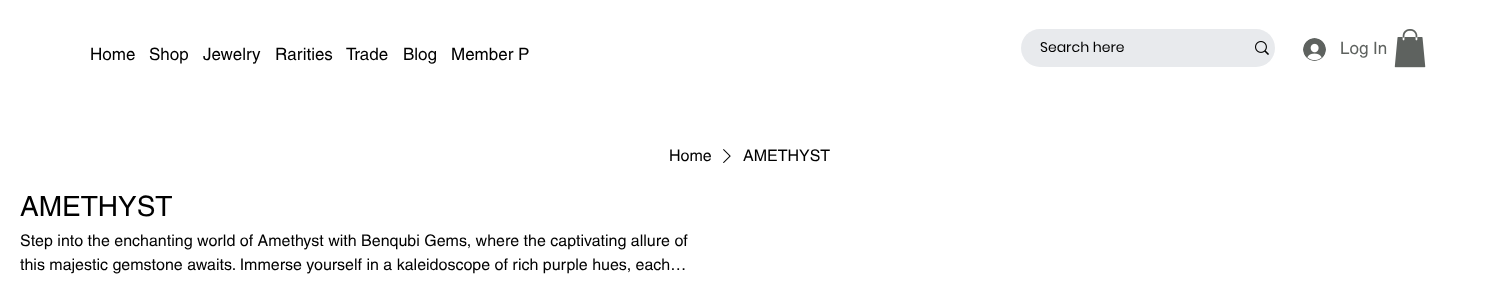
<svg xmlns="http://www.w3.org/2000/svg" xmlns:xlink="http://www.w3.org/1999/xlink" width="1499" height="308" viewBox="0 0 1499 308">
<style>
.cls-1{font:17px helvetica;fill:#000000}
.cls-2{font:14px Poppins;fill:#000000}
.cls-3{font:17px helvetica;fill:#5e625f}
.cls-4{font:16px helvetica;fill:#000000}
.cls-5{font:28px helvetica;fill:#000000}
</style>
<rect width="100%" height="100%" fill="#ffffff"/>
<rect fill="#e8eaed" x="1021" y="29" width="254" height="38" rx="19"/>
<image xlink:href="image0.png" x="1255" y="41" width="14" height="14"/>
<image xlink:href="image1.png" x="1303" y="38" width="23" height="23"/>
<image xlink:href="image2.png" x="1394" y="29" width="32" height="39"/>
<image xlink:href="image3.png" x="723" y="149" width="8" height="14"/>
<text class="cls-1" x="90" y="60">Home</text>
<text class="cls-1" x="149" y="60">Shop</text>
<text class="cls-1" x="203" y="60">Jewelry</text>
<text class="cls-1" x="275" y="60">Rarities</text>
<text class="cls-1" x="346" y="60">Trade</text>
<text class="cls-1" x="403" y="60">Blog</text>
<text class="cls-1" x="451" y="60">Member P</text>
<text class="cls-2" x="1040" y="52">Search here</text>
<text class="cls-3" x="1340" y="54">Log In</text>
<text class="cls-4" x="669" y="161">Home</text>
<text class="cls-4" x="743" y="161">AMETHYST</text>
<text class="cls-5" x="20" y="216">AMETHYST</text>
<text class="cls-4"><tspan x="20" y="246">Step into the enchanting world of Amethyst with Benqubi Gems, where the captivating allure of</tspan><tspan x="20" y="270">this majestic gemstone awaits. Immerse yourself in a kaleidoscope of rich purple hues, each…</tspan></text>
</svg>
